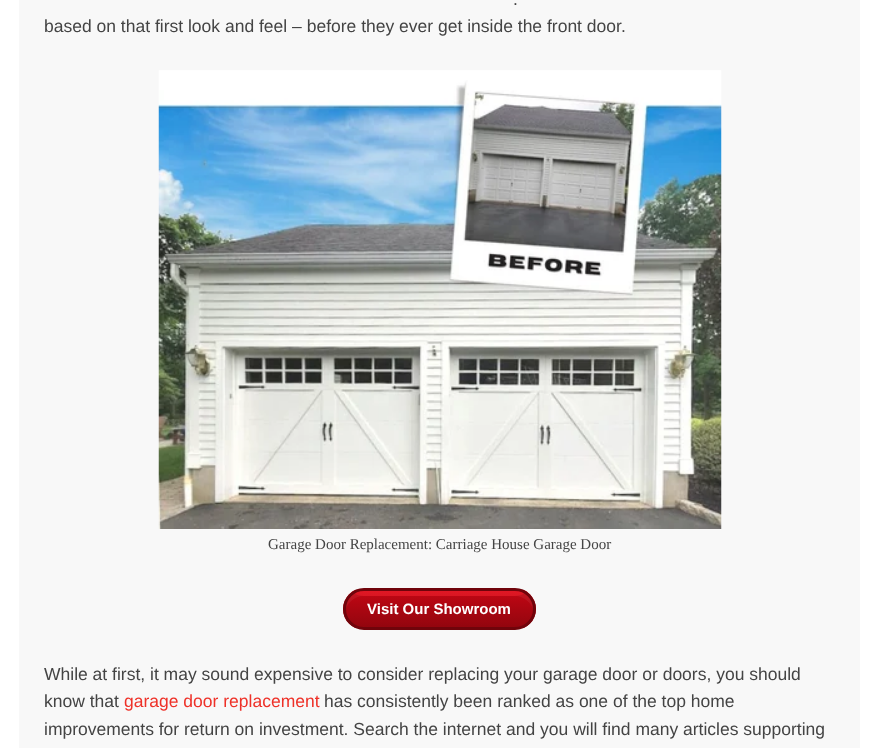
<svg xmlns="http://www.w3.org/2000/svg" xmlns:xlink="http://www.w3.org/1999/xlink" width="878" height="748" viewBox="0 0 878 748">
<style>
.cls-1{font:17.5px Liberation Sans;fill:#444444}
.cls-2{font:15px Liberation Serif;fill:#444444}
.cls-3{font:bold 15px Liberation Sans;fill:#ffffff}
.cls-4{font:17.5px Liberation Sans;fill:#ee3128}
</style>
<defs>
<clipPath id="clip1"><rect x="343" y="588" width="193" height="42" rx="21"/></clipPath>
<linearGradient id="g1" gradientUnits="userSpaceOnUse" x1="439" y1="590" x2="439" y2="628"><stop offset="0" stop-color="#e00917"/><stop offset="1" stop-color="#a80611"/></linearGradient>
</defs>
<rect width="100%" height="100%" fill="#ffffff"/>
<rect fill="#f8f8f8" x="19" y="0" width="841" height="748"/>
<image xlink:href="image0.png" x="158" y="70" width="564" height="459"/>
<g clip-path="url(#clip1)">
<rect fill="url(#g1)" x="343" y="590" width="193" height="38"/>
</g>
<path fill="#000000" fill-opacity="0.13" d="M354 593C348 597 345 602 345 609C345 619 354 628 364 628H515C525 628 534 619 534 609C534 602 531 596 525 593C522 595 519 596 515 596H364C360 596 356 595 354 593Z"/>
<path fill="#ffffff" fill-opacity="0.06" d="M364 596H515C524 596 532 603 534 612V609C534 599 525 590 515 590H364C354 590 345 599 345 609V612C347 603 354 596 364 596Z"/>
<rect fill="none" stroke="#70040b" stroke-width="3" x="344.5" y="589.5" width="190" height="39" rx="19.5"/>
<text class="cls-1" x="513" y="5">.</text>
<text class="cls-1" x="44" y="32">based on that first look and feel – before they ever get inside the front door.</text>
<text class="cls-2" x="268" y="549">Garage Door Replacement: Carriage House Garage Door</text>
<text class="cls-3" x="367" y="614">Visit Our Showroom</text>
<text class="cls-1"><tspan x="44" y="680">While at first, it may sound expensive to consider replacing your garage door or doors, you should</tspan><tspan x="44" y="707">know that</tspan></text>
<text class="cls-4" x="124" y="707">garage door replacement</text>
<text class="cls-1" x="324" y="707">has consistently been ranked as one of the top home</text>
<text class="cls-1" x="44" y="735">improvements for return on investment. Search the internet and you will find many articles supporting</text>
</svg>
